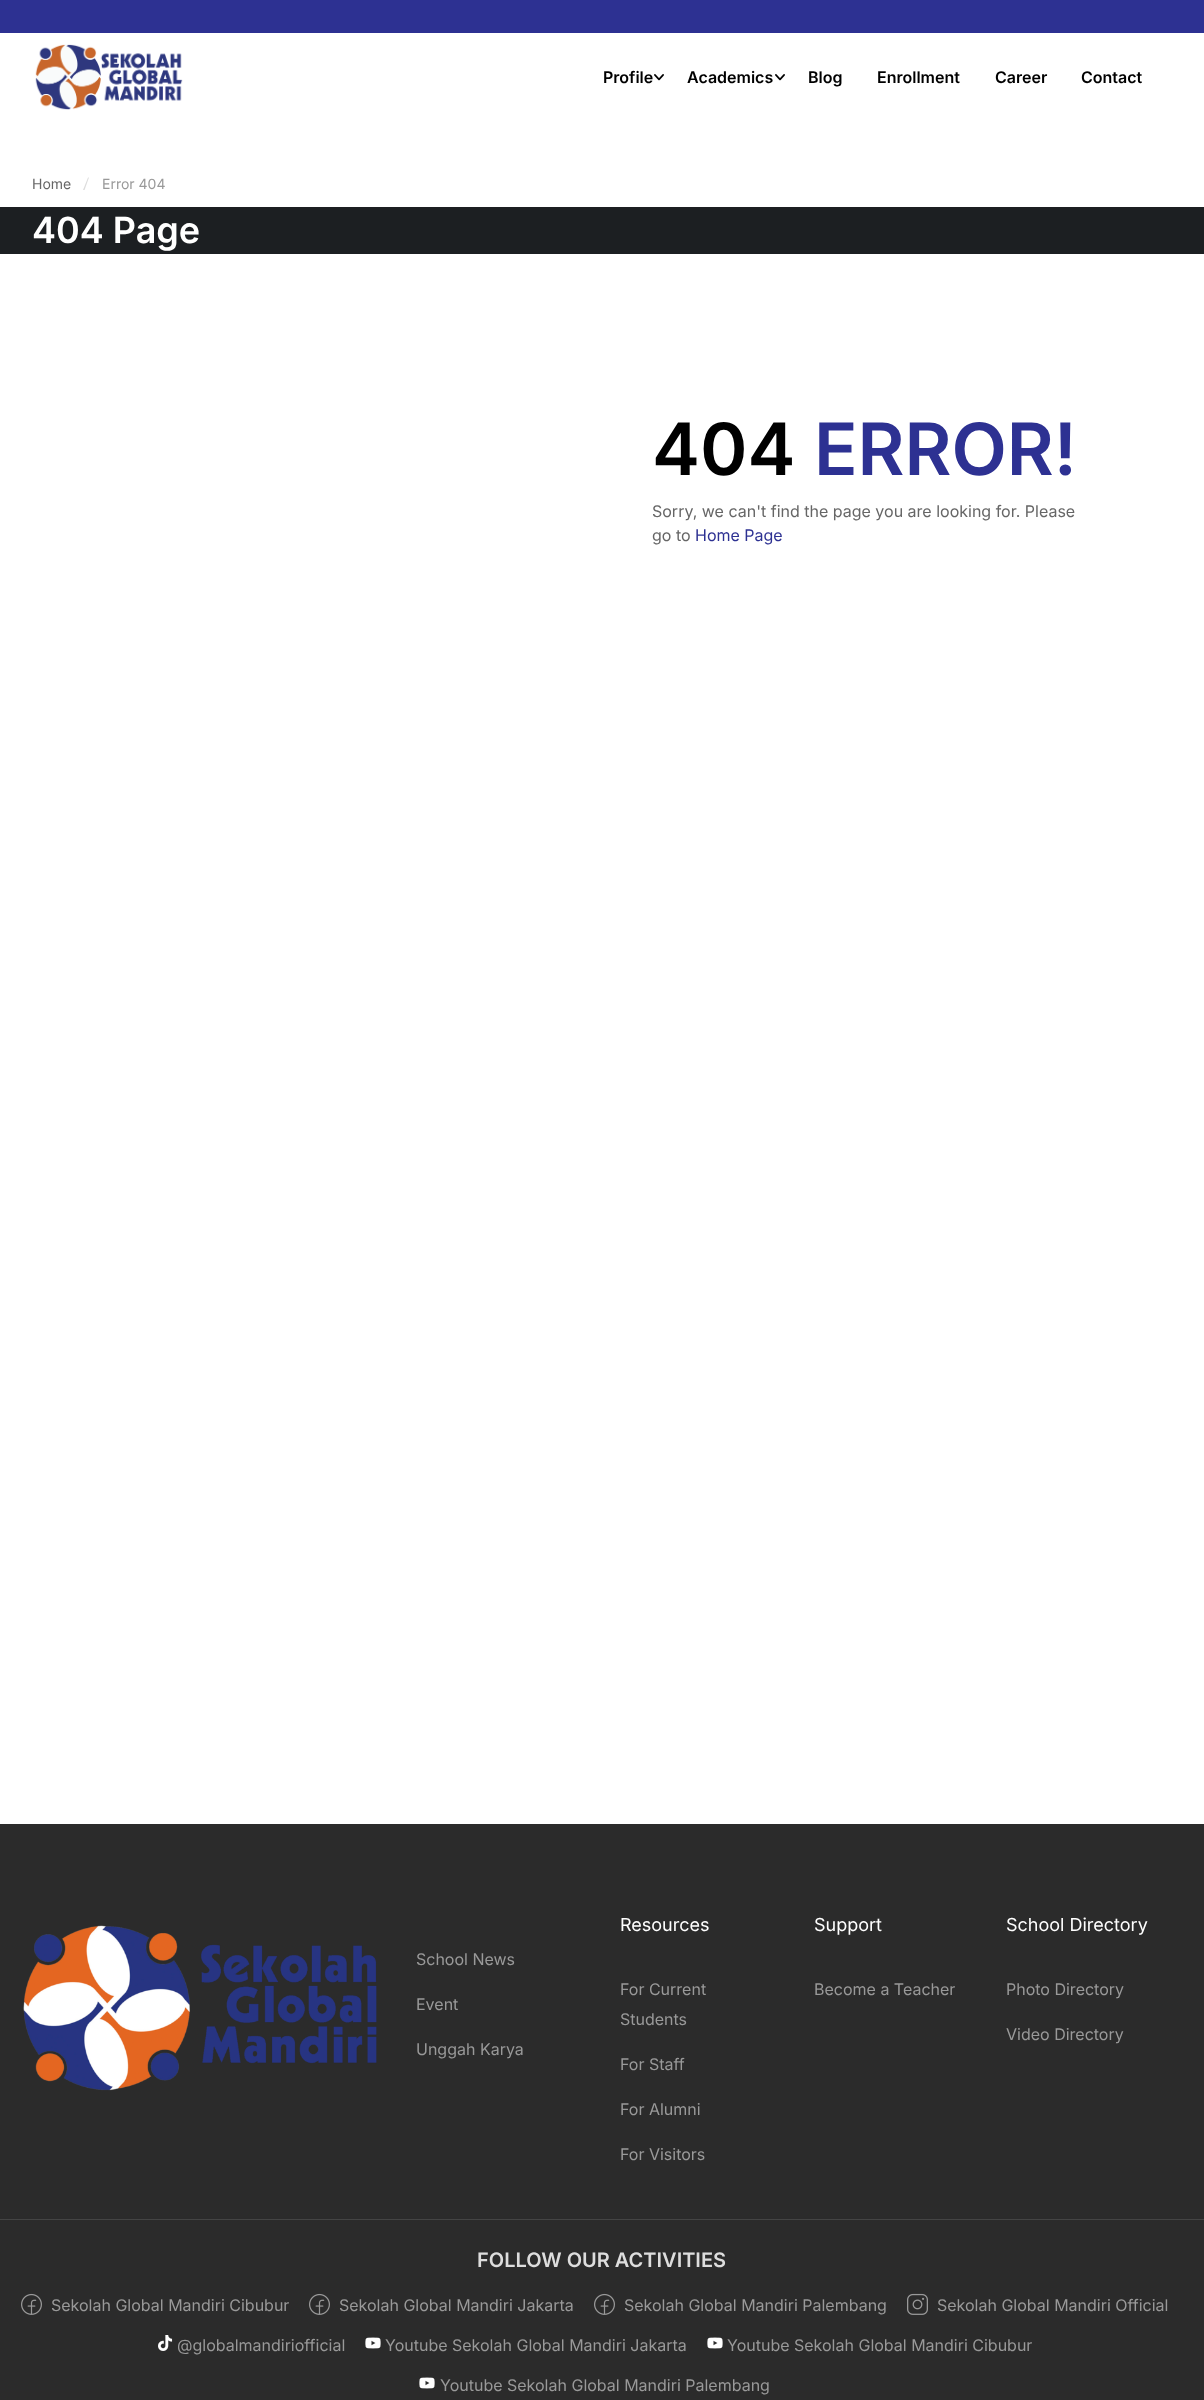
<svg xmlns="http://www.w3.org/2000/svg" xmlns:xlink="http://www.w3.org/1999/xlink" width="1204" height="2400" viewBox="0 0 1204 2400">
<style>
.cls-1{font:600 16px Inter;fill:#000000}
.cls-2{font:14px Inter;fill:#666666}
.cls-3{font:14px Inter;fill:#999999}
.cls-4{font:600 36px Inter;fill:#ffffff}
.cls-5{font:600 72px Inter;fill:#000000}
.cls-6{font:600 72px Inter;fill:#2d3192}
.cls-7{font:16px Inter;fill:#666666}
.cls-8{font:16px Inter;fill:#2d3192}
.cls-9{font:16px Inter;fill:#999999}
.cls-10{font:18px Inter;fill:#ffffff}
.cls-11{font:600 20px Inter;fill:#dddddd}
</style>
<rect width="100%" height="100%" fill="#ffffff"/>
<rect fill="#2d3192" x="0" y="0" width="1204" height="33"/>
<image xlink:href="image0.png" x="35" y="44" width="148" height="66"/>
<image xlink:href="image1.png" x="654" y="74" width="10" height="7"/>
<image xlink:href="image1.png" x="775" y="74" width="10" height="7"/>
<path fill="#dddddd" d="M89 177.5L84.5 190H83L88 177.5Z"/>
<rect fill="#1c1f22" x="0" y="207" width="1204" height="47"/>
<rect fill="#2b2b2b" x="0" y="1824" width="1204" height="576"/>
<rect fill="#444444" x="0" y="2219" width="1204" height="1"/>
<image xlink:href="image2.png" x="23" y="1925" width="354" height="166"/>
<image xlink:href="image3.png" x="21" y="2293" width="21" height="22"/>
<image xlink:href="image3.png" x="309" y="2293" width="21" height="22"/>
<image xlink:href="image3.png" x="594" y="2293" width="21" height="22"/>
<image xlink:href="image4.png" x="907" y="2293" width="21" height="22"/>
<image xlink:href="image5.png" x="158" y="2335" width="15" height="16"/>
<image xlink:href="image6.png" x="365" y="2337" width="16" height="12"/>
<image xlink:href="image6.png" x="707" y="2337" width="16" height="12"/>
<image xlink:href="image6.png" x="419" y="2377" width="16" height="12"/>
<text class="cls-1" x="603" y="83">Profile</text>
<text class="cls-1" x="687" y="83">Academics</text>
<text class="cls-1" x="808" y="83">Blog</text>
<text class="cls-1" x="877" y="83">Enrollment</text>
<text class="cls-1" x="995" y="83">Career</text>
<text class="cls-1" x="1081" y="83">Contact</text>
<text class="cls-2" x="32" y="189">Home</text>
<text class="cls-3" x="102" y="189">Error 404</text>
<text class="cls-4" x="32" y="243">404 Page</text>
<text class="cls-5" x="652" y="475">404</text>
<text class="cls-6" x="814" y="475">ERROR!</text>
<text class="cls-7"><tspan x="652" y="517">Sorry, we can't find the page you are looking for. Please</tspan><tspan x="652" y="541">go to</tspan></text>
<text class="cls-8" x="695" y="541">Home Page</text>
<text class="cls-9" x="416" y="1965">School News</text>
<text class="cls-9" x="416" y="2010">Event</text>
<text class="cls-9" x="416" y="2055">Unggah Karya</text>
<text class="cls-10" x="620" y="1931">Resources</text>
<text class="cls-9"><tspan x="620" y="1995">For Current</tspan><tspan x="620" y="2025">Students</tspan></text>
<text class="cls-9" x="620" y="2070">For Staff</text>
<text class="cls-9" x="620" y="2115">For Alumni</text>
<text class="cls-9" x="620" y="2160">For Visitors</text>
<text class="cls-10" x="814" y="1931">Support</text>
<text class="cls-9" x="814" y="1995">Become a Teacher</text>
<text class="cls-10" x="1006" y="1931">School Directory</text>
<text class="cls-9" x="1006" y="1995">Photo Directory</text>
<text class="cls-9" x="1006" y="2040">Video Directory</text>
<text class="cls-11" x="477" y="2267">FOLLOW OUR ACTIVITIES</text>
<text class="cls-9" x="51" y="2311">Sekolah Global Mandiri Cibubur</text>
<text class="cls-9" x="339" y="2311">Sekolah Global Mandiri Jakarta</text>
<text class="cls-9" x="624" y="2311">Sekolah Global Mandiri Palembang</text>
<text class="cls-9" x="937" y="2311">Sekolah Global Mandiri Official</text>
<text class="cls-9" x="177" y="2351">@globalmandiriofficial</text>
<text class="cls-9" x="385" y="2351">Youtube Sekolah Global Mandiri Jakarta</text>
<text class="cls-9" x="727" y="2351">Youtube Sekolah Global Mandiri Cibubur</text>
<text class="cls-9" x="440" y="2391">Youtube Sekolah Global Mandiri Palembang</text>
</svg>
